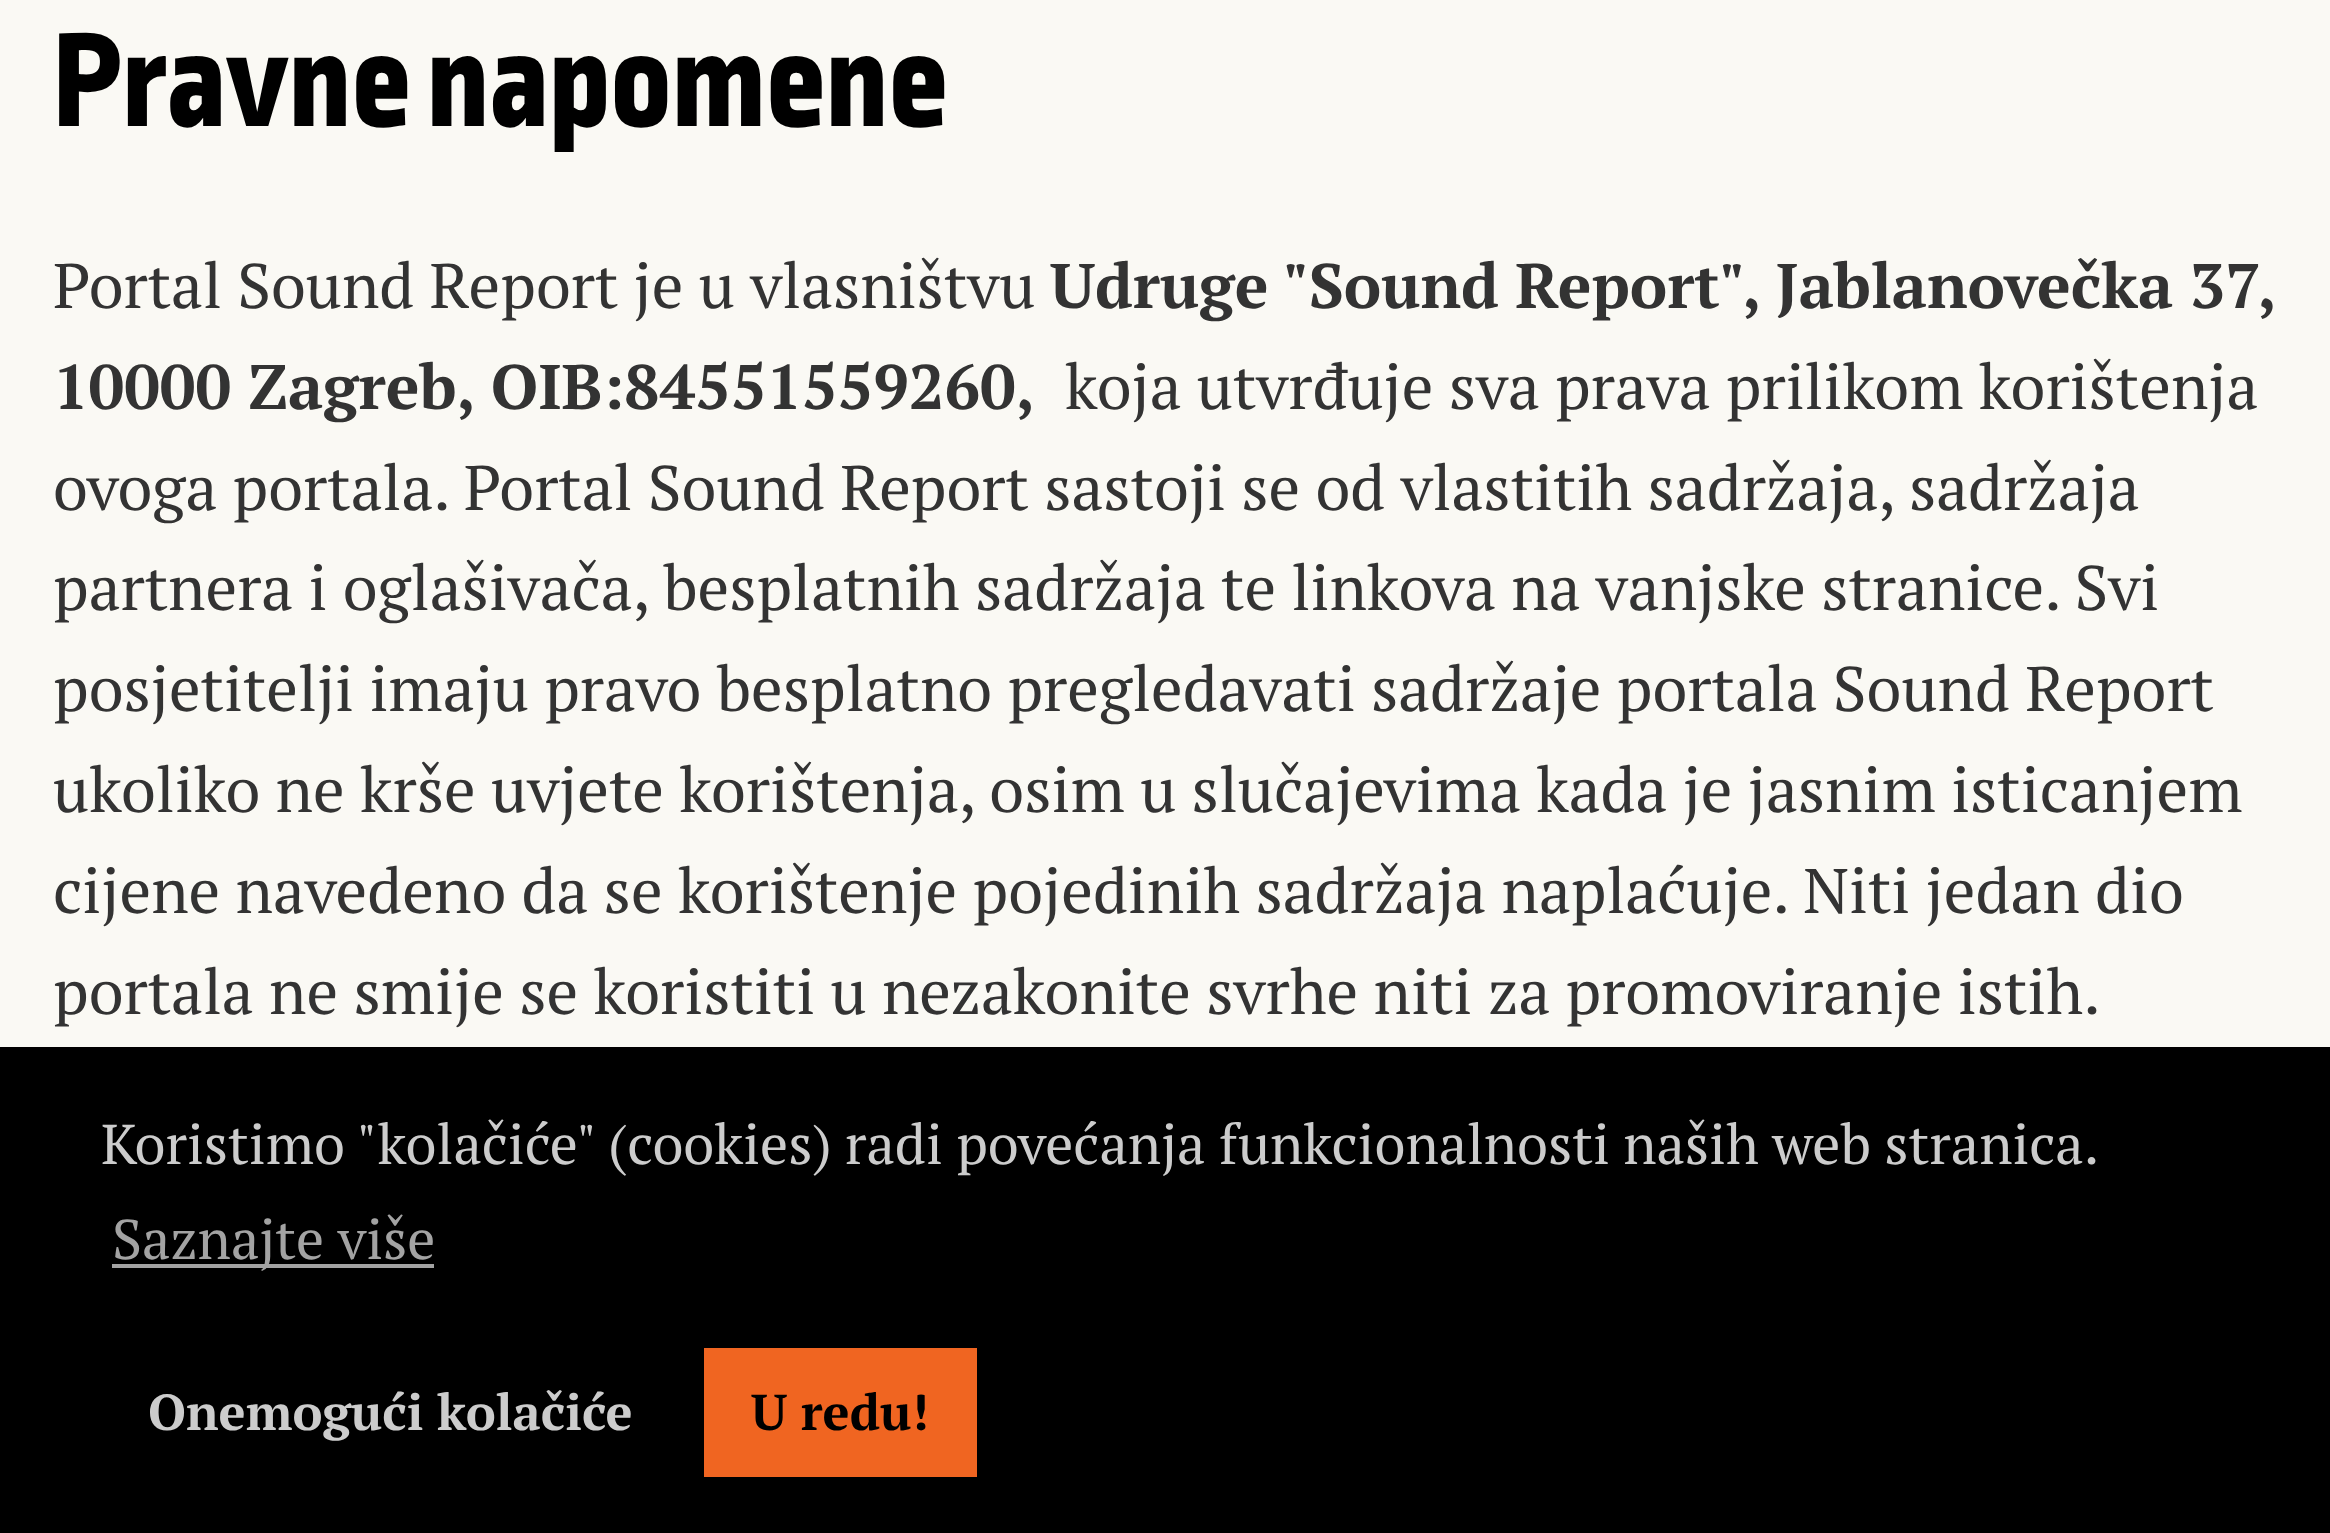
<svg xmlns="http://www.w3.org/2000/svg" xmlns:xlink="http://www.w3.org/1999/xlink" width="2330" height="1533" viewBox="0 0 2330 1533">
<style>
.cls-1{font:140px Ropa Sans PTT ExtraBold;fill:#000000}
.cls-2{font:63px PT Serif;fill:#333333}
.cls-3{font:bold 63px PT Serif;fill:#333333}
.cls-4{font:56px PT Serif;fill:#cccccc}
.cls-5{font:56px PT Serif;fill:#a3a3a3}
.cls-6{font:bold 50.5px PT Serif;fill:#cccccc}
.cls-7{font:bold 50.5px PT Serif;fill:#000000}
</style>
<rect width="100%" height="100%" fill="#faf9f4"/>
<rect fill="#000000" x="0" y="1047" width="2330" height="486"/>
<rect fill="#a3a3a3" x="112" y="1264" width="322" height="4"/>
<rect fill="#f06521" x="704" y="1348" width="273" height="129"/>
<text class="cls-1" x="53" y="126">Pravne napomene</text>
<text class="cls-2" x="53" y="308">Portal Sound Report je u vlasništvu</text>
<text class="cls-3" x="1050" y="308" word-spacing="-0.5">Udruge "Sound Report", Jablanovečka 37,</text>
<text class="cls-3" x="53" y="409">10000 Zagreb, OIB:84551559260,</text>
<text class="cls-2" x="1065" y="409">koja utvrđuje sva prava prilikom korištenja</text>
<text class="cls-2"><tspan x="53" y="510">ovoga portala. Portal Sound Report sastoji se od vlastitih sadržaja, sadržaja</tspan><tspan x="53" y="610">partnera i oglašivača, besplatnih sadržaja te linkova na vanjske stranice. Svi</tspan><tspan x="53" y="711">posjetitelji imaju pravo besplatno pregledavati sadržaje portala Sound Report</tspan><tspan x="53" y="812">ukoliko ne krše uvjete korištenja, osim u slučajevima kada je jasnim isticanjem</tspan><tspan x="53" y="913">cijene navedeno da se korištenje pojedinih sadržaja naplaćuje. Niti jedan dio</tspan><tspan x="53" y="1014">portala ne smije se koristiti u nezakonite svrhe niti za promoviranje istih.</tspan></text>
<text class="cls-4" x="101" y="1164" word-spacing="-0.25">Koristimo "kolačiće" (cookies) radi povećanja funkcionalnosti naših web stranica.</text>
<text class="cls-5" x="112" y="1259">Saznajte više</text>
<text class="cls-6" x="148" y="1430">Onemogući kolačiće</text>
<text class="cls-7" x="751" y="1430">U redu!</text>
</svg>
